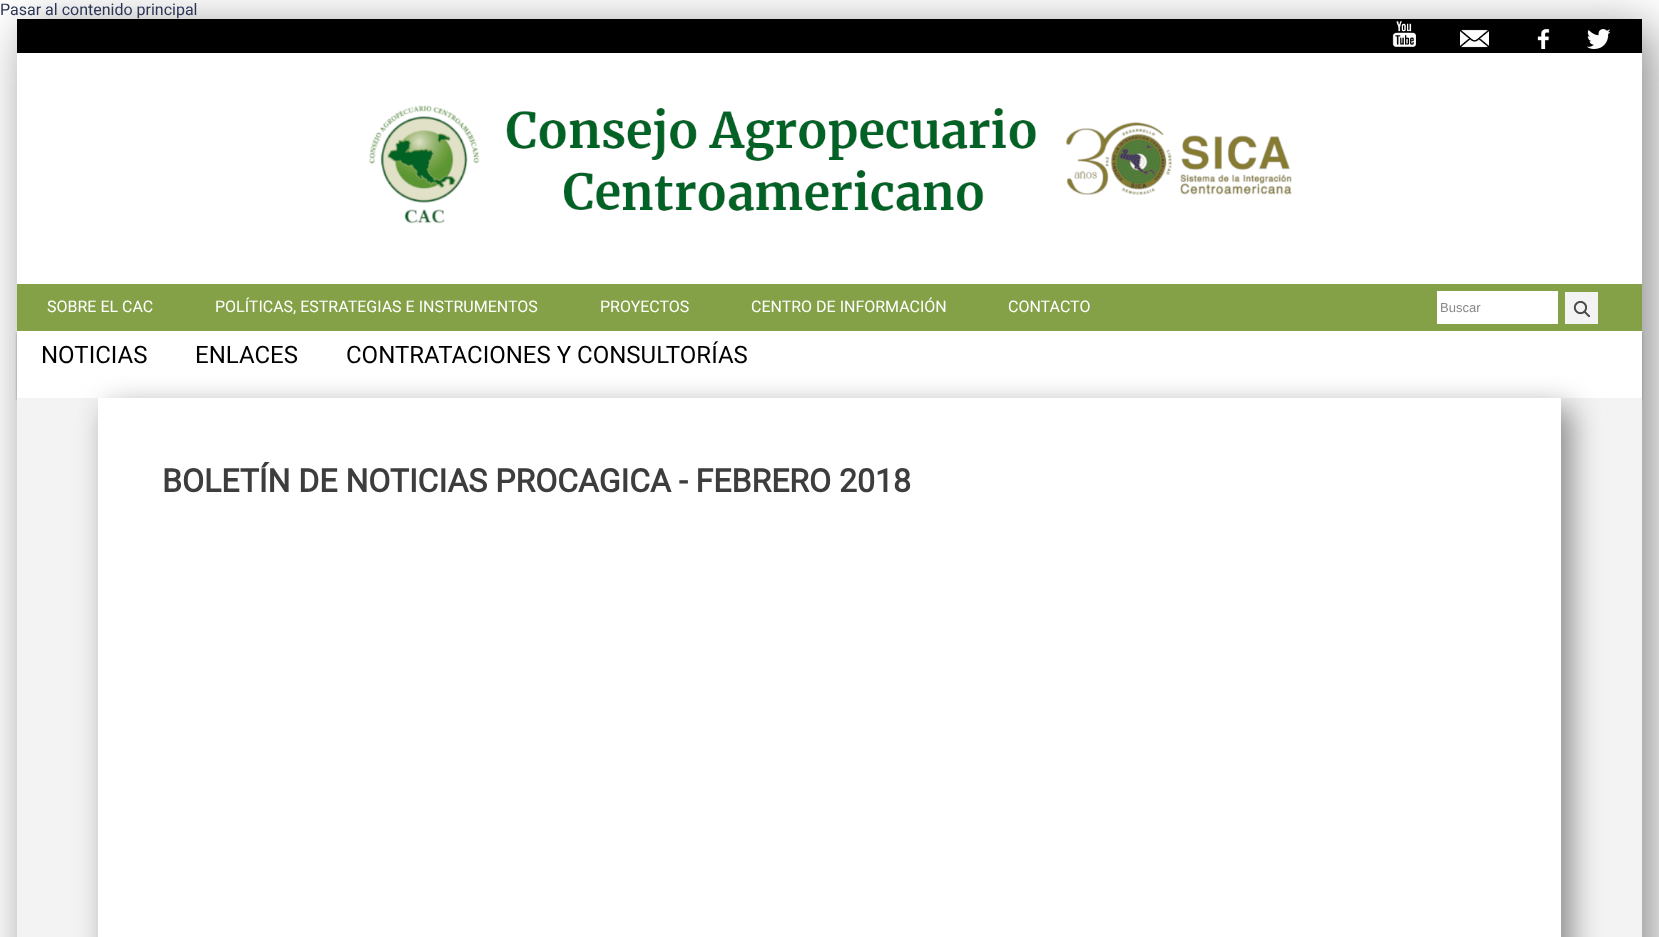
<svg xmlns="http://www.w3.org/2000/svg" xmlns:xlink="http://www.w3.org/1999/xlink" width="1659" height="937" viewBox="0 0 1659 937">
<style>
.cls-1{font:16px Roboto;fill:#2b3656}
.cls-2{font:16px Roboto;fill:#ffffff}
.cls-3{font:13px Liberation Sans;fill:#888888}
.cls-4{font:24px Roboto;fill:#000000}
.cls-5{font:bold 32px Roboto;fill:#3d3d3d}
</style>
<defs>
<clipPath id="clip1"><path d="M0 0H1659V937H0ZM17 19H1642V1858H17Z" clip-rule="evenodd"/></clipPath>
<clipPath id="clip2"><path d="M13 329H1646V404H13ZM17 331H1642V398H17Z" clip-rule="evenodd"/></clipPath>
</defs>
<rect width="100%" height="100%" fill="#ffffff"/>
<g clip-path="url(#clip1)">
<rect fill="#888888" filter="blur(25px)" x="27" y="29" width="1625" height="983"/>
</g>
<rect fill="#000000" x="17" y="19" width="1625" height="34"/>
<image xlink:href="image0.png" x="1392" y="21" width="24" height="26"/>
<image xlink:href="image1.png" x="1460" y="29" width="29" height="19"/>
<image xlink:href="image2.png" x="1537" y="28" width="13" height="21"/>
<image xlink:href="image3.png" x="1587" y="29" width="23" height="20"/>
<image xlink:href="image4.png" x="369" y="105" width="923" height="119"/>
<rect fill="#84a148" x="17" y="284" width="1625" height="47"/>
<rect fill="#ffffff" x="1437" y="291" width="121" height="33"/>
<rect fill="#f3f3f3" x="1565" y="292" width="33" height="32"/>
<image xlink:href="image5.png" x="1573" y="301" width="17" height="16"/>
<g clip-path="url(#clip2)">
<rect fill="#888888" filter="blur(1px)" x="17" y="333" width="1625" height="67"/>
</g>
<rect fill="#f3f3f3" x="17" y="398" width="1625" height="539"/>
<rect fill="#888888" filter="blur(15px)" x="108" y="408" width="1463" height="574"/>
<rect fill="#ffffff" x="98" y="398" width="1463" height="539"/>
<text class="cls-1" x="0" y="15">Pasar al contenido principal</text>
<text class="cls-2" x="47" y="312">SOBRE EL CAC</text>
<text class="cls-2" x="215" y="312">POLÍTICAS, ESTRATEGIAS E INSTRUMENTOS</text>
<text class="cls-2" x="600" y="312">PROYECTOS</text>
<text class="cls-2" x="751" y="312">CENTRO DE INFORMACIÓN</text>
<text class="cls-2" x="1008" y="312">CONTACTO</text>
<text class="cls-3" x="1440" y="312">Buscar</text>
<text class="cls-4" x="41" y="363">NOTICIAS</text>
<text class="cls-4" x="195" y="363">ENLACES</text>
<text class="cls-4" x="346" y="363">CONTRATACIONES Y CONSULTORÍAS</text>
<text class="cls-5" x="162" y="492">BOLETÍN DE NOTICIAS PROCAGICA - FEBRERO 2018</text>
</svg>
